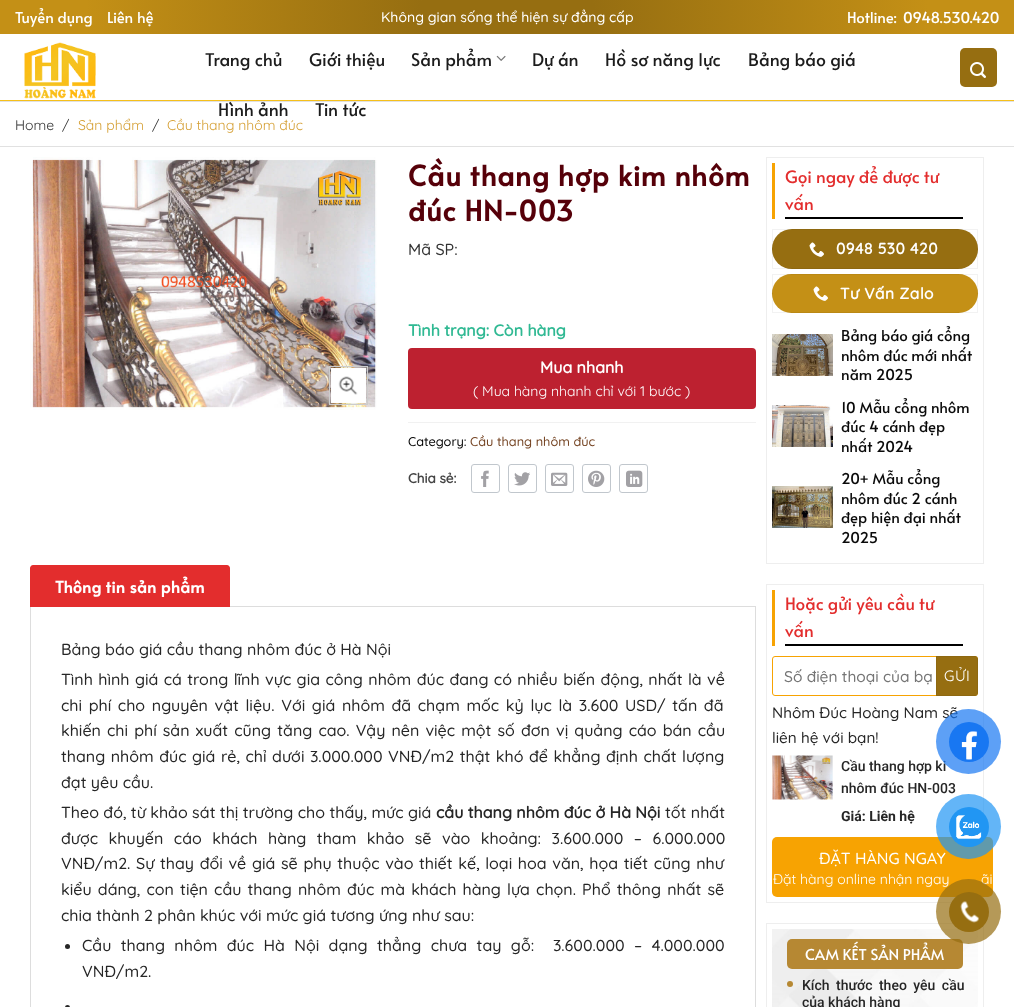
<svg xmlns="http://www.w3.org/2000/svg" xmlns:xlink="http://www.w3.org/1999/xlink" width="1014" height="1007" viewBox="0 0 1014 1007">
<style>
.cls-1{font:15px Alata;fill:#ffffff}
.cls-2{font:500 14px Quicksand;fill:#ffffff}
.cls-3{font:17.5px Alata;fill:#1c1c1c}
.cls-4{font:14px Quicksand;fill:#333333}
.cls-5{font:14px Quicksand;fill:#d59f33}
.cls-6{font:bold 28px Alata;letter-spacing:1px;fill:#560009}
.cls-7{font:500 16px Quicksand;fill:#333333}
.cls-8{font:bold 16px Quicksand;fill:#30b993}
.cls-9{font:bold 16px Quicksand;fill:#ffffff}
.cls-10{font:14px Quicksand;fill:#ffffff}
.cls-11{font:500 12.75px Quicksand;fill:#000000}
.cls-12{font:500 12.75px Quicksand;fill:#754423}
.cls-13{font:bold 13.5px Quicksand;fill:#444444}
.cls-14{font:bold 16px Alata;letter-spacing:0.3px;fill:#ffffff}
.cls-15{font:500 16px Quicksand;fill:#262626}
.cls-16{font:bold 16px Quicksand;fill:#262626}
.cls-17{font:17px Alata;fill:#e32d2d}
.cls-18{font:bold 15.5px Quicksand;letter-spacing:0.5px;fill:#ffffff}
.cls-19{font:15px Alata;fill:#0a0a0a}
.cls-20{font:500 15.5px Quicksand;fill:#757575}
.cls-21{font:15px Quicksand;letter-spacing:0.5px;fill:#ffffff}
.cls-22{font:500 15.25px Quicksand;fill:#262626}
.cls-23{font:500 14px Roboto;fill:#262626}
.cls-24{font:bold 14px Roboto;fill:#262626}
.cls-25{font:500 16px Quicksand;fill:#ffffff}
</style>
<defs>
<radialGradient id="g1" gradientUnits="userSpaceOnUse" cx="507" cy="17" r="507"><stop offset="0.17" stop-color="#966e11"/><stop offset="0.83" stop-color="#c49016"/></radialGradient>
</defs>
<rect width="100%" height="100%" fill="#ffffff"/>
<rect fill="url(#g1)" x="0" y="0" width="1014" height="34"/>
<rect fill="#f6c01b" x="0" y="100" width="1014" height="1"/>
<image xlink:href="image0.png" x="24" y="42" width="72" height="57"/>
<image xlink:href="image1.png" x="496" y="55" width="10" height="6"/>
<rect fill="#966e11" x="960" y="48" width="37" height="39" rx="5"/>
<image xlink:href="image2.png" x="970" y="62" width="16" height="16"/>
<rect fill="#e1e1e1" x="0" y="101" width="1014" height="1"/>
<rect fill="#e1e1e1" x="0" y="146" width="1014" height="1"/>
<image xlink:href="image3.png" x="30" y="157" width="347" height="253"/>
<image xlink:href="image4.png" x="330" y="367" width="37" height="37"/>
<rect fill="none" stroke="#cccccc" x="329.5" y="366.5" width="38" height="38"/>
<rect fill="#bd2130" x="408" y="348" width="348" height="61" rx="4"/>
<rect fill="#f1f1f1" x="408" y="422" width="348" height="1"/>
<rect fill="none" stroke="#c1c7cd" x="471.5" y="464.5" width="28" height="28" rx="2.5"/>
<image xlink:href="image5.png" x="481" y="470" width="8" height="17"/>
<rect fill="none" stroke="#c1c7cd" x="508.5" y="464.5" width="28" height="28" rx="2.5"/>
<image xlink:href="image6.png" x="514" y="472" width="16" height="14"/>
<rect fill="none" stroke="#c1c7cd" x="545.5" y="464.5" width="28" height="28" rx="2.5"/>
<image xlink:href="image7.png" x="551" y="472" width="17" height="14"/>
<rect fill="none" stroke="#c1c7cd" x="582.5" y="464.5" width="28" height="28" rx="2.5"/>
<image xlink:href="image8.png" x="588" y="470" width="17" height="17"/>
<rect fill="none" stroke="#c1c7cd" x="619.5" y="464.5" width="28" height="28" rx="2.5"/>
<image xlink:href="image9.png" x="626" y="470" width="17" height="17"/>
<rect fill="none" stroke="#dddddd" x="30.5" y="606.5" width="725" height="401"/>
<path fill="#e32d2d" d="M33 565H227C228.5 565 230 566.5 230 568V607H30V568C30 566.5 31.5 565 33 565Z"/>
<circle fill="#262626" cx="67.5" cy="946.5" r="2.5"/>
<circle fill="#262626" cx="67.5" cy="1007.5" r="2.5"/>
<rect fill="none" stroke="#eeeeee" x="766.5" y="157.5" width="217" height="406"/>
<rect fill="#f7a302" x="772" y="163" width="3" height="56"/>
<rect fill="#000000" x="785" y="217" width="178" height="2"/>
<rect fill="#966e11" x="772" y="229" width="206" height="40" rx="20"/>
<rect fill="none" stroke="#000000" stroke-opacity="0.05" x="772.5" y="229.5" width="205" height="39"/>
<image xlink:href="image10.png" x="809" y="242" width="15" height="15"/>
<rect fill="#c49016" x="772" y="274" width="206" height="39" rx="19.5"/>
<rect fill="none" stroke="#000000" stroke-opacity="0.05" x="772.5" y="274.5" width="205" height="38"/>
<image xlink:href="image11.png" x="813" y="286" width="15" height="15"/>
<image xlink:href="image12.png" x="772" y="334" width="61" height="42"/>
<image xlink:href="image13.png" x="772" y="405" width="61" height="42"/>
<image xlink:href="image14.png" x="772" y="486" width="61" height="42"/>
<rect fill="none" stroke="#eeeeee" x="766.5" y="584.5" width="217" height="318"/>
<rect fill="#f7a302" x="772" y="590" width="3" height="56"/>
<rect fill="#000000" x="785" y="644" width="178" height="2"/>
<rect fill="none" stroke="#f7a302" x="772.5" y="656.5" width="205" height="39" rx="2.5"/>
<path fill="#966e11" d="M936 656H975C976.5 656 978 657.5 978 659V693C978 694.5 976.5 696 975 696H936Z"/>
<rect fill="none" stroke="#000000" stroke-opacity="0.05" x="936.5" y="656.5" width="41" height="39"/>
<image xlink:href="image15.png" x="772" y="755" width="61" height="45"/>
<rect fill="#f7a302" x="772" y="837" width="221" height="60" rx="5"/>
<rect fill="none" stroke="#eeeeee" x="766.5" y="923.5" width="217" height="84"/>
<image xlink:href="image16.png" x="772" y="929" width="206" height="78"/>
<rect fill="#b68833" x="787" y="939" width="176" height="30" rx="5"/>
<circle fill="#b68833" cx="790" cy="984" r="3"/>
<text class="cls-1" x="15" y="23">Tuyển dụng</text>
<text class="cls-1" x="107" y="23">Liên hệ</text>
<text class="cls-2" x="381" y="22">Không gian sống thể hiện sự đẳng cấp</text>
<text class="cls-1" x="847" y="23">Hotline:</text>
<text class="cls-1" x="903" y="23">0948.530.420</text>
<text class="cls-3" x="205" y="66">Trang chủ</text>
<text class="cls-3" x="309" y="66">Giới thiệu</text>
<text class="cls-3" x="411" y="66">Sản phẩm</text>
<text class="cls-3" x="532" y="66">Dự án</text>
<text class="cls-3" x="605" y="66">Hồ sơ năng lực</text>
<text class="cls-3" x="748" y="66">Bảng báo giá</text>
<text class="cls-3" x="218" y="116">Hình ảnh</text>
<text class="cls-3" x="315" y="116">Tin tức</text>
<text class="cls-4" x="15" y="130">Home</text>
<text class="cls-4" x="62" y="130">/</text>
<text class="cls-5" x="78" y="130">Sản phẩm</text>
<text class="cls-4" x="152" y="130">/</text>
<text class="cls-5" x="167" y="130">Cầu thang nhôm đúc</text>
<text class="cls-6"><tspan x="408" y="186">Cầu thang hợp kim nhôm</tspan><tspan x="408" y="221">đúc HN-003</tspan></text>
<text class="cls-7" x="408" y="255">Mã SP:</text>
<text class="cls-8" x="408" y="336">Tình trạng: Còn hàng</text>
<text class="cls-9" x="540" y="373">Mua nhanh</text>
<text class="cls-10" x="473" y="396">( Mua hàng nhanh chỉ với 1 bước )</text>
<text class="cls-11" x="408" y="446">Category:</text>
<text class="cls-12" x="470" y="446">Cầu thang nhôm đúc</text>
<text class="cls-13" x="408" y="483">Chia sẻ:</text>
<text class="cls-14" x="55" y="593">Thông tin sản phẩm</text>
<text class="cls-15"><tspan x="61" y="655">Bảng báo giá cầu thang nhôm đúc ở Hà Nội</tspan><tspan x="61" y="685" word-spacing="1">Tình hình giá cá trong lĩnh vực gia công nhôm đúc đang có nhiều biến động, nhất là về</tspan><tspan x="61" y="711" word-spacing="2.25">chi phí cho nguyên vật liệu. Với giá nhôm đã chạm mốc kỷ lục là 3.600 USD/ tấn đã</tspan><tspan x="61" y="736" word-spacing="1.7">khiến chi phí sản xuất cũng tăng cao. Vậy nên việc một số đơn vị quảng cáo bán cầu</tspan><tspan x="61" y="762" word-spacing="1.1">thang nhôm đúc giá rẻ, chỉ dưới 3.000.000 VNĐ/m2 thật khó để khẳng định chất lượng</tspan><tspan x="61" y="788">đạt yêu cầu.</tspan><tspan x="61" y="818">Theo đó, từ khảo sát thị trường cho thấy, mức giá</tspan></text>
<text class="cls-16" x="436" y="818">cầu thang nhôm đúc ở Hà Nội</text>
<text class="cls-15" x="665" y="818">tốt nhất</text>
<text class="cls-15"><tspan x="61" y="844" word-spacing="6.1">được khuyến cáo khách hàng tham khảo sẽ vào khoảng: 3.600.000 – 6.000.000</tspan><tspan x="61" y="869" word-spacing="1.25">VNĐ/m2. Sự thay đổi về giá sẽ phụ thuộc vào thiết kế, loại hoa văn, họa tiết cũng như</tspan><tspan x="61" y="895" word-spacing="1.75">kiểu dáng, con tiện cầu thang nhôm đúc mà khách hàng lựa chọn. Phổ thông nhất sẽ</tspan><tspan x="61" y="921">chia thành 2 phân khúc với mức giá tương ứng như sau:</tspan></text>
<text class="cls-15" xml:space="preserve"><tspan x="82" y="951" word-spacing="5">Cầu thang nhôm đúc Hà Nội dạng thẳng chưa tay gỗ:  3.600.000 – 4.000.000</tspan><tspan x="82" y="977">VNĐ/m2.</tspan></text>
<text class="cls-17"><tspan x="785" y="183">Gọi ngay để được tư</tspan><tspan x="785" y="210">vấn</tspan></text>
<text class="cls-18" x="836" y="254">0948 530 420</text>
<text class="cls-18" x="840" y="299">Tư Vấn Zalo</text>
<text class="cls-19"><tspan x="841" y="341">Bảng báo giá cổng</tspan><tspan x="841" y="361">nhôm đúc mới nhất</tspan><tspan x="841" y="380">năm 2025</tspan></text>
<text class="cls-19"><tspan x="841" y="413">10 Mẫu cổng nhôm</tspan><tspan x="841" y="432">đúc 4 cánh đẹp</tspan><tspan x="841" y="452">nhất 2024</tspan></text>
<text class="cls-19"><tspan x="841" y="484">20+ Mẫu cổng</tspan><tspan x="841" y="504">nhôm đúc 2 cánh</tspan><tspan x="841" y="523">đẹp hiện đại nhất</tspan><tspan x="841" y="543">2025</tspan></text>
<text class="cls-17"><tspan x="785" y="610">Hoặc gửi yêu cầu tư</tspan><tspan x="785" y="637">vấn</tspan></text>
<text class="cls-20" x="784" y="682">Số điện thoại của bạ</text>
<text class="cls-21" x="944" y="681">GỬI</text>
<text class="cls-22"><tspan x="772" y="718">Nhôm Đúc Hoàng Nam sẽ</tspan><tspan x="772" y="743">liên hệ với bạn!</tspan></text>
<text class="cls-23"><tspan x="841" y="771">Cầu thang hợp ki</tspan><tspan x="841" y="793">nhôm đúc HN-003</tspan></text>
<text class="cls-24" x="841" y="821">Giá: Liên hệ</text>
<text class="cls-25" x="819" y="864">ĐẶT HÀNG NGAY</text>
<text class="cls-10" x="773" y="884">Đặt hàng online nhận ngay</text>
<text class="cls-10" x="981" y="884">ãi</text>
<text class="cls-1" x="805" y="960">CAM KẾT SẢN PHẨM</text>
<text class="cls-23"><tspan x="802" y="990" word-spacing="3">Kích thước theo yêu cầu</tspan><tspan x="802" y="1007">của khách hàng</tspan></text>
<circle fill="#1877f2" fill-opacity="0.7" cx="968.5" cy="741.5" r="32.5"/>
<circle fill="#1877f2" cx="969" cy="742" r="20"/>
<image xlink:href="image17.png" x="961" y="731" width="17" height="29"/>
<circle fill="#2196f3" fill-opacity="0.7" cx="968.5" cy="826.5" r="32.5"/>
<circle fill="#2196f3" cx="969" cy="827" r="20"/>
<image xlink:href="image18.png" x="956" y="815" width="26" height="24"/>
<circle fill="#966e11" fill-opacity="0.7" cx="968.5" cy="911.5" r="32.5"/>
<circle fill="#966e11" cx="969" cy="912" r="20"/>
<image xlink:href="image19.png" x="960" y="901" width="19" height="22"/>
</svg>
